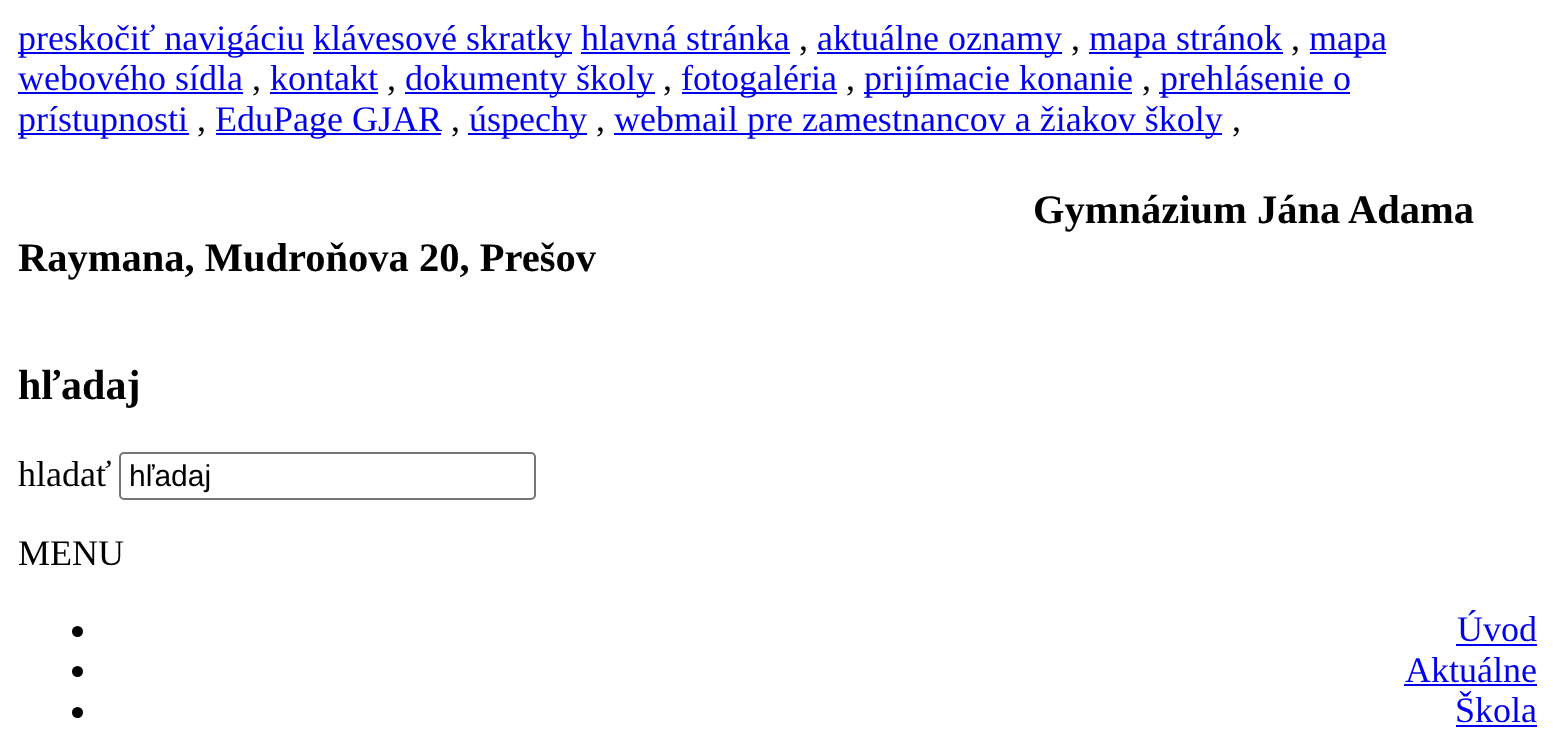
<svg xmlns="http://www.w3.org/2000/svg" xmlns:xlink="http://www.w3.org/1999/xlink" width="1553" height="733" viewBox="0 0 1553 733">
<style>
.cls-1{font:36px Liberation Serif;fill:#0000ee}
.cls-2{font:36px Liberation Serif;fill:#000000}
.cls-3{font:bold 40.5px Liberation Serif;fill:#000000}
.cls-4{font:bold 42px Liberation Serif;fill:#000000}
.cls-5{font:30px Liberation Sans;fill:#000000}
</style>
<rect width="100%" height="100%" fill="#ffffff"/>
<rect fill="#0000ee" x="18" y="52" width="286" height="2"/>
<rect fill="#0000ee" x="313" y="52" width="259" height="2"/>
<rect fill="#0000ee" x="817" y="52" width="245" height="2"/>
<rect fill="#0000ee" x="1089" y="52" width="194" height="2"/>
<rect fill="#0000ee" x="1310" y="52" width="76" height="2"/>
<rect fill="#0000ee" x="581" y="52" width="209" height="2"/>
<rect fill="#0000ee" x="18" y="92" width="225" height="2"/>
<rect fill="#0000ee" x="270" y="92" width="108" height="2"/>
<rect fill="#0000ee" x="405" y="92" width="250" height="2"/>
<rect fill="#0000ee" x="682" y="92" width="155" height="2"/>
<rect fill="#0000ee" x="864" y="92" width="268" height="2"/>
<rect fill="#0000ee" x="1159" y="92" width="191" height="2"/>
<rect fill="#0000ee" x="18" y="133" width="171" height="2"/>
<rect fill="#0000ee" x="216" y="133" width="225" height="2"/>
<rect fill="#0000ee" x="468" y="133" width="119" height="2"/>
<rect fill="#0000ee" x="614" y="133" width="608" height="2"/>
<rect fill="none" stroke="#767676" stroke-width="2" x="120" y="453" width="415" height="46" rx="4"/>
<circle fill="#000000" cx="77.5" cy="631.5" r="5.5"/>
<rect fill="#0000ee" x="1456" y="644" width="81" height="2"/>
<circle fill="#000000" cx="77.5" cy="671.5" r="5.5"/>
<rect fill="#0000ee" x="1404" y="684" width="133" height="2"/>
<circle fill="#000000" cx="77.5" cy="712.5" r="5.5"/>
<rect fill="#0000ee" x="1456" y="725" width="81" height="2"/>
<text class="cls-1" x="18" y="50">preskočiť navigáciu</text>
<text class="cls-1" x="313" y="50">klávesové skratky hlavná stránka</text>
<text class="cls-2" x="799" y="50">,</text>
<text class="cls-1" x="817" y="50">aktuálne oznamy</text>
<text class="cls-2" x="1071" y="50">,</text>
<text class="cls-1" x="1089" y="50">mapa stránok</text>
<text class="cls-2" x="1291" y="50">,</text>
<text class="cls-1" x="1309" y="50">mapa</text>
<text class="cls-1" x="18" y="90">webového sídla</text>
<text class="cls-2" x="252" y="90">,</text>
<text class="cls-1" x="270" y="90">kontakt</text>
<text class="cls-2" x="387" y="90">,</text>
<text class="cls-1" x="405" y="90">dokumenty školy</text>
<text class="cls-2" x="663" y="90">,</text>
<text class="cls-1" x="681" y="90">fotogaléria</text>
<text class="cls-2" x="846" y="90">,</text>
<text class="cls-1" x="864" y="90">prijímacie konanie</text>
<text class="cls-2" x="1142" y="90">,</text>
<text class="cls-1" x="1160" y="90">prehlásenie o</text>
<text class="cls-1" x="18" y="131">prístupnosti</text>
<text class="cls-2" x="197" y="131">,</text>
<text class="cls-1" x="215" y="131">EduPage GJAR</text>
<text class="cls-2" x="451" y="131">,</text>
<text class="cls-1" x="469" y="131">úspechy</text>
<text class="cls-2" x="596" y="131">,</text>
<text class="cls-1" x="614" y="131">webmail pre zamestnancov a žiakov školy</text>
<text class="cls-2" x="1232" y="131">,</text>
<text class="cls-3" x="1033" y="223">Gymnázium Jána Adama</text>
<text class="cls-3" x="18" y="271">Raymana, Mudroňova 20, Prešov</text>
<text class="cls-4" x="18" y="399">hľadaj</text>
<text class="cls-2" x="18" y="486">hladať</text>
<text class="cls-5" x="129" y="486">hľadaj</text>
<text class="cls-2" x="18" y="565">MENU</text>
<text class="cls-1" x="1457" y="641">Úvod</text>
<text class="cls-1" x="1405" y="682">Aktuálne</text>
<text class="cls-1" x="1455" y="722">Škola</text>
</svg>
